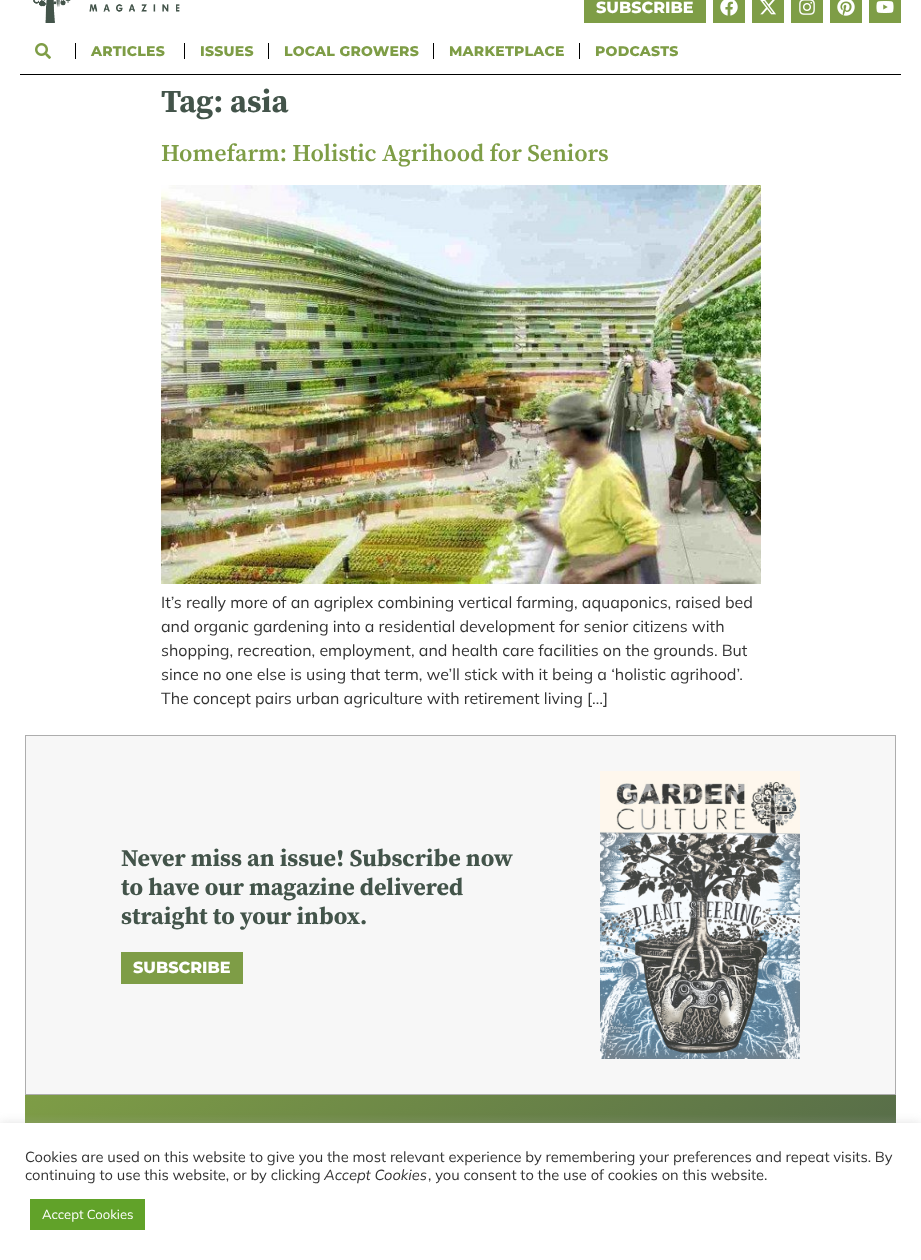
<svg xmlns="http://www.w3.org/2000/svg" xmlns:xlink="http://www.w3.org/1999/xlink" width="921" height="1260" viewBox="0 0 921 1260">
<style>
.cls-1{font:800 16px Montserrat;fill:#ffffff}
.cls-2{font:800 14px Montserrat;letter-spacing:0.25px;fill:#7e9d46}
.cls-3{font:bold 32px Source Serif Pro;fill:#43544a}
.cls-4{font:600 24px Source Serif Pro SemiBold;fill:#7e9d46}
.cls-5{font:16px Mulish;fill:#333333}
.cls-6{font:bold 24px Source Serif Pro;fill:#43544a}
.cls-7{font:14.67px Mulish;fill:#333333}
.cls-8{font:italic 14.67px Mulish;fill:#333333}
.cls-9{font:13px Mulish;fill:#ffffff}
</style>
<defs>
<linearGradient id="g1" gradientUnits="userSpaceOnUse" x1="693" y1="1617" x2="228" y2="953"><stop offset="0" stop-color="#43544a"/><stop offset="1" stop-color="#7e9d46"/></linearGradient>
</defs>
<rect width="100%" height="100%" fill="#ffffff"/>
<image xlink:href="image0.png" x="33" y="0" width="147" height="23"/>
<rect fill="#7e9d46" x="584" y="0" width="122" height="23"/>
<rect fill="#7e9d46" x="713" y="0" width="32" height="23"/>
<image xlink:href="image1.png" x="720" y="0" width="18" height="16"/>
<rect fill="#7e9d46" x="752" y="0" width="32" height="23"/>
<image xlink:href="image2.png" x="760" y="0" width="16" height="15"/>
<rect fill="#7e9d46" x="791" y="0" width="32" height="23"/>
<image xlink:href="image3.png" x="799" y="0" width="16" height="15"/>
<rect fill="#7e9d46" x="830" y="0" width="32" height="23"/>
<image xlink:href="image4.png" x="837" y="0" width="18" height="16"/>
<rect fill="#7e9d46" x="869" y="0" width="32" height="23"/>
<image xlink:href="image5.png" x="876" y="1" width="18" height="12"/>
<rect fill="#000000" x="20" y="74" width="881" height="1"/>
<image xlink:href="image6.png" x="35" y="43" width="16" height="16"/>
<rect fill="#000000" x="75" y="43" width="1" height="16"/>
<rect fill="#000000" x="184" y="43" width="1" height="16"/>
<rect fill="#000000" x="268" y="43" width="1" height="16"/>
<rect fill="#000000" x="433" y="43" width="1" height="16"/>
<rect fill="#000000" x="579" y="43" width="1" height="16"/>
<image xlink:href="image7.png" x="161" y="185" width="600" height="399"/>
<rect fill="#f7f7f7" stroke="#adadad" x="25.5" y="735.5" width="870" height="359"/>
<rect fill="#7e9d46" x="121" y="952" width="122" height="32"/>
<image xlink:href="image8.png" x="600" y="771" width="200" height="288"/>
<rect fill="url(#g1)" x="25" y="1095" width="871" height="28"/>
<rect fill="#acabab" fill-opacity="0.3" filter="blur(5px)" x="0" y="1122" width="921" height="137"/>
<rect fill="#ffffff" x="0" y="1123" width="921" height="137"/>
<rect fill="#61a229" x="30" y="1199" width="115" height="31"/>
<text class="cls-1" x="596" y="13">SUBSCRIBE</text>
<text class="cls-2" x="91" y="56">ARTICLES</text>
<text class="cls-2" x="200" y="56">ISSUES</text>
<text class="cls-2" x="284" y="56">LOCAL GROWERS</text>
<text class="cls-2" x="449" y="56">MARKETPLACE</text>
<text class="cls-2" x="595" y="56">PODCASTS</text>
<text class="cls-3" x="161" y="112">Tag: asia</text>
<text class="cls-4" x="161" y="161">Homefarm: Holistic Agrihood for Seniors</text>
<text class="cls-5"><tspan x="161" y="608">It’s really more of an agriplex combining vertical farming, aquaponics, raised bed</tspan><tspan x="161" y="632">and organic gardening into a residential development for senior citizens with</tspan><tspan x="161" y="656">shopping, recreation, employment, and health care facilities on the grounds. But</tspan><tspan x="161" y="680">since no one else is using that term, we’ll stick with it being a ‘holistic agrihood’.</tspan><tspan x="161" y="704">The concept pairs urban agriculture with retirement living […]</tspan></text>
<text class="cls-6"><tspan x="121" y="866">Never miss an issue! Subscribe now</tspan><tspan x="121" y="895">to have our magazine delivered</tspan><tspan x="121" y="924">straight to your inbox.</tspan></text>
<text class="cls-1" x="133" y="973">SUBSCRIBE</text>
<text class="cls-7"><tspan x="25" y="1162">Cookies are used on this website to give you the most relevant experience by remembering your preferences and repeat visits. By</tspan><tspan x="25" y="1180">continuing to use this website, or by clicking</tspan></text>
<text class="cls-8" x="324" y="1180">Accept Cookies</text>
<text class="cls-7" x="428" y="1180">, you consent to the use of cookies on this website.</text>
<text class="cls-9" x="42" y="1219">Accept Cookies</text>
</svg>
